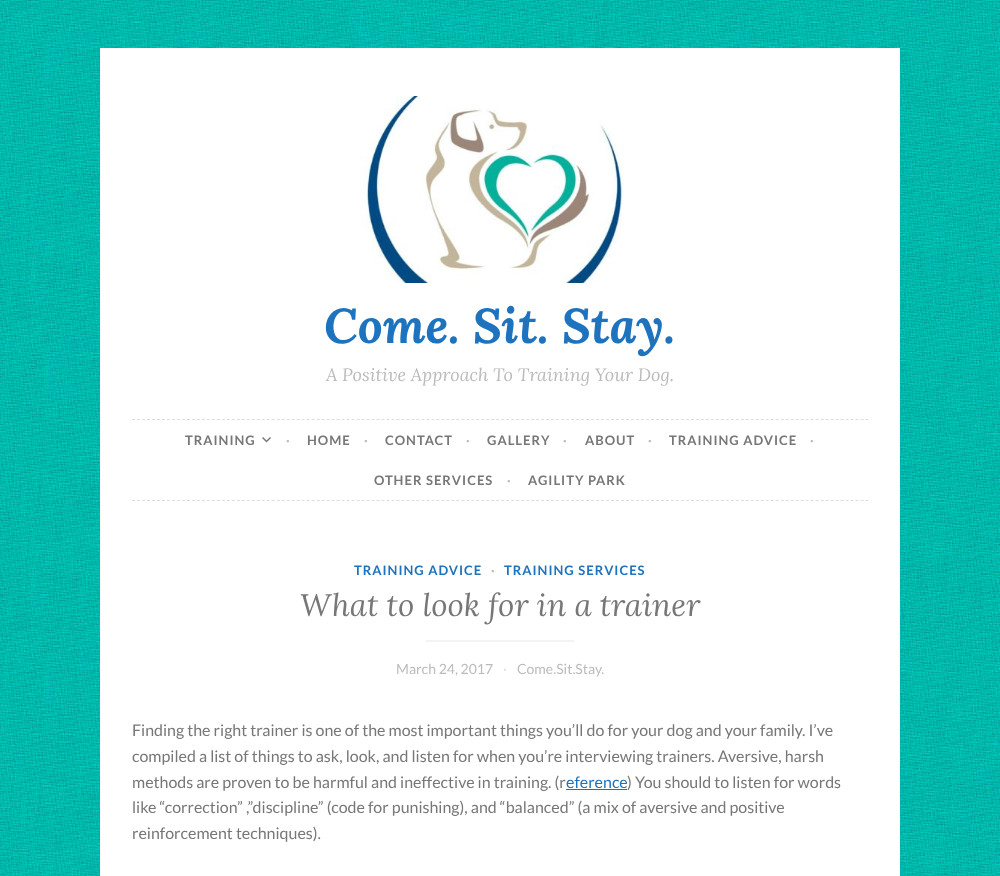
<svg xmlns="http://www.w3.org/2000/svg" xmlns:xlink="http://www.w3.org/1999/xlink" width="1000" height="876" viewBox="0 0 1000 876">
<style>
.cls-1{font:italic bold 48.75px Lora;fill:#1e73be}
.cls-2{font:italic 18px Lora;fill:#bbbbbb}
.cls-3{font:bold 13px Lato;letter-spacing:1px;fill:#777777}
.cls-4{font:bold 13px Lato;letter-spacing:1px;fill:#bbbbbb}
.cls-5{font:bold 13px Lato;letter-spacing:1px;fill:#1e73be}
.cls-6{font:italic 31.25px Lora;fill:#777777}
.cls-7{font:14px Lato;fill:#bbbbbb}
.cls-8{font:14px Lato;fill:#dddddd}
.cls-9{font:16px Lato;fill:#777777}
.cls-10{font:16px Lato;fill:#1e73be}
</style>
<rect width="100%" height="100%" fill="#ffffff"/>
<image xlink:href="image0.png" x="0" y="0" width="1000" height="876"/>
<rect fill="#ffffff" x="100" y="48" width="800" height="828"/>
<image xlink:href="image1.png" x="360" y="96" width="264" height="187"/>
<path fill="none" stroke="#dddddd" stroke-dasharray="3 1.99" d="M132 419.5H868"/>
<path fill="none" stroke="#dddddd" stroke-dasharray="3 1.99" d="M132 500.5H868"/>
<image xlink:href="image2.png" x="262" y="437" width="9" height="6"/>
<rect fill="#f3f3f3" x="426" y="640" width="148" height="2"/>
<rect fill="#1e73be" x="566" y="789" width="61" height="1"/>
<text class="cls-1" x="324" y="343">Come. Sit. Stay.</text>
<text class="cls-2" x="326" y="381">A Positive Approach To Training Your Dog.</text>
<text class="cls-3" x="185" y="445">TRAINING</text>
<text class="cls-4" x="286" y="445">·</text>
<text class="cls-3" x="307" y="445">HOME</text>
<text class="cls-4" x="364" y="445">·</text>
<text class="cls-3" x="385" y="445">CONTACT</text>
<text class="cls-4" x="466" y="445">·</text>
<text class="cls-3" x="487" y="445">GALLERY</text>
<text class="cls-4" x="563" y="445">·</text>
<text class="cls-3" x="585" y="445">ABOUT</text>
<text class="cls-4" x="648" y="445">·</text>
<text class="cls-3" x="669" y="445">TRAINING ADVICE</text>
<text class="cls-4" x="810" y="445">·</text>
<text class="cls-3" x="374" y="485">OTHER SERVICES</text>
<text class="cls-4" x="507" y="485">·</text>
<text class="cls-3" x="528" y="485">AGILITY PARK</text>
<text class="cls-5" x="354" y="575">TRAINING ADVICE</text>
<text class="cls-4" x="491" y="575">·</text>
<text class="cls-5" x="504" y="575">TRAINING SERVICES</text>
<text class="cls-6" x="300" y="616">What to look for in a trainer</text>
<text class="cls-7" x="396" y="674">March 24, 2017</text>
<text class="cls-8" x="503" y="674">·</text>
<text class="cls-7" x="517" y="674">Come.Sit.Stay.</text>
<text class="cls-9"><tspan x="132" y="736">Finding the right trainer is one of the most important things you’ll do for your dog and your family. I’ve</tspan><tspan x="132" y="762">compiled a list of things to ask, look, and listen for when you’re interviewing trainers. Aversive, harsh</tspan><tspan x="132" y="788">methods are proven to be harmful and ineffective in training. (r</tspan></text>
<text class="cls-10" x="566" y="788">eference</text>
<text class="cls-9" x="627" y="788">) You should to listen for words</text>
<text class="cls-9"><tspan x="132" y="813">like “correction” ,”discipline” (code for punishing), and “balanced” (a mix of aversive and positive</tspan><tspan x="132" y="839">reinforcement techniques).</tspan></text>
</svg>
